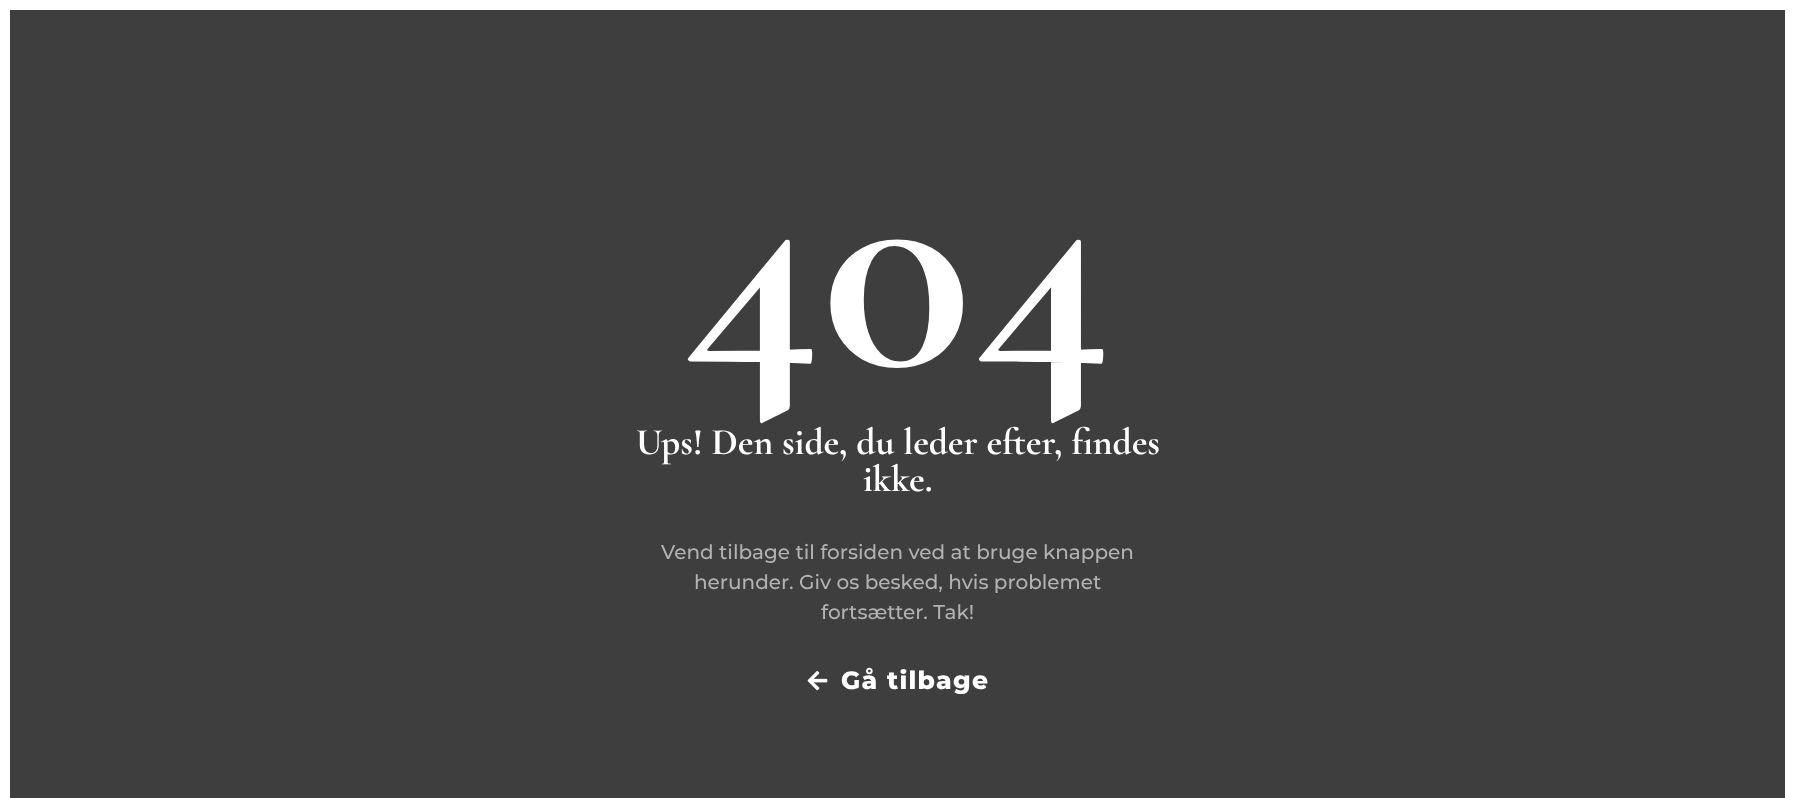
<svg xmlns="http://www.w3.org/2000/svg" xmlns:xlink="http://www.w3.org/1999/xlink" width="1795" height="798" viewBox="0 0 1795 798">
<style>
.cls-1{font:bold 312px Cormorant Garamond;fill:#ffffff}
.cls-2{font:bold 37.5px Cormorant Garamond;fill:#ffffff}
.cls-3{font:500 20px Montserrat;fill:#b2b2b2}
.cls-4{font:800 25px Montserrat;letter-spacing:1.25px;fill:#ffffff}
</style>
<rect width="100%" height="100%" fill="#ffffff"/>
<rect fill="#3e3e3e" x="10" y="10" width="1775" height="788"/>
<image xlink:href="image0.png" x="807" y="671" width="21" height="20"/>
<text class="cls-1" x="680" y="364">404</text>
<text class="cls-2" x="636" y="454">Ups! Den side, du leder efter, findes</text>
<text class="cls-2" x="863" y="491">ikke.</text>
<text class="cls-3" x="661" y="559">Vend tilbage til forsiden ved at bruge knappen</text>
<text class="cls-3" x="694" y="589">herunder. Giv os besked, hvis problemet</text>
<text class="cls-3" x="821" y="619">fortsætter. Tak!</text>
<text class="cls-4" x="841" y="689">Gå tilbage</text>
</svg>
